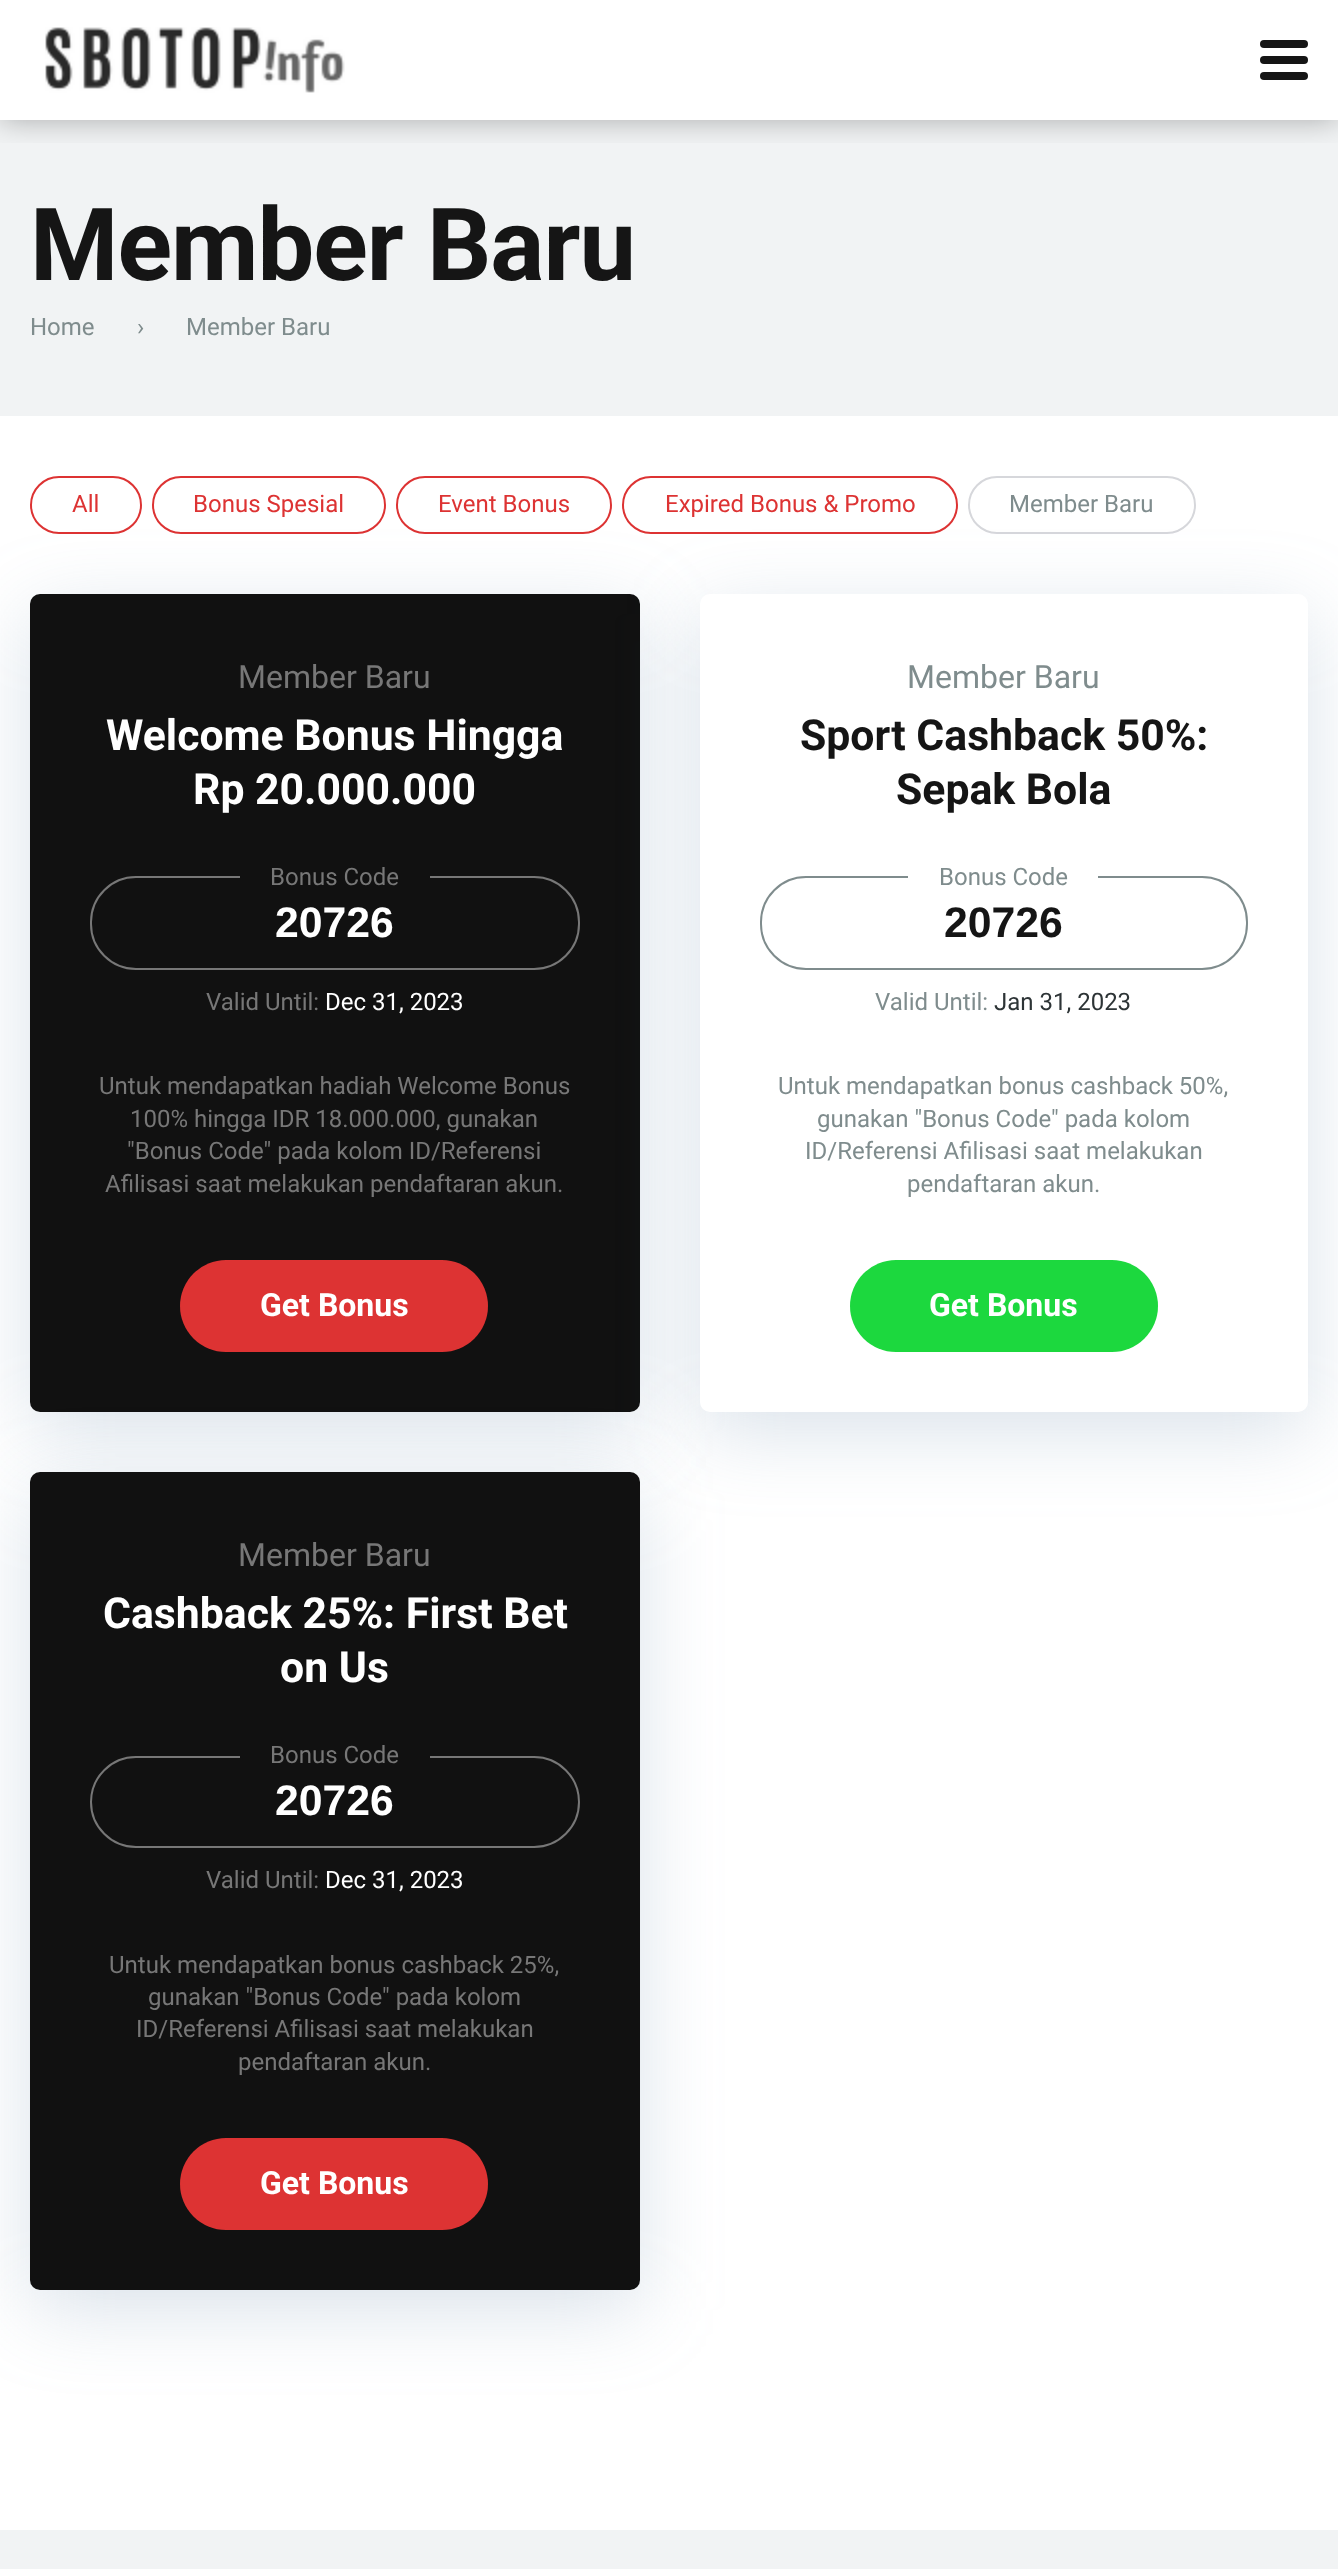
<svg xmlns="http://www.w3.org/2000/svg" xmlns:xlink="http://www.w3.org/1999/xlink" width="1338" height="2569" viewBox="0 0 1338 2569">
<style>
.cls-1{font:bold 101px Roboto;letter-spacing:-1px;fill:#151515}
.cls-2{font:24px Roboto;fill:#7f8c8d}
.cls-3{font:24px Roboto;fill:#dd3333}
.cls-4{font:32px Roboto;fill:#777777}
.cls-5{font:bold 42.75px Roboto;fill:#ffffff}
.cls-6{font:24px Roboto;fill:#777777}
.cls-7{font:bold 42.75px Liberation Sans;fill:#ffffff}
.cls-8{font:24px Roboto;fill:#ffffff}
.cls-9{font:bold 32px Roboto;fill:#ffffff}
.cls-10{font:32px Roboto;fill:#7f8c8d}
.cls-11{font:bold 42.75px Roboto;fill:#151515}
.cls-12{font:bold 42.75px Liberation Sans;fill:#151515}
.cls-13{font:24px Roboto;fill:#2d3436}
</style>
<defs>
<clipPath id="clip1"><rect x="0" y="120" width="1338" height="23"/></clipPath>
</defs>
<rect width="100%" height="100%" fill="#ffffff"/>
<rect fill="#f1f3f4" x="0" y="120" width="1338" height="296"/>
<g clip-path="url(#clip1)">
<rect fill="#000000" fill-opacity="0.3" filter="blur(15px)" x="0" y="0" width="1338" height="120"/>
</g>
<image xlink:href="image0.png" x="45" y="27" width="300" height="66"/>
<rect fill="#151515" x="1260" y="40" width="48" height="8" rx="4"/>
<rect fill="#151515" x="1260" y="56" width="48" height="8" rx="4"/>
<rect fill="#151515" x="1260" y="72" width="48" height="8" rx="4"/>
<rect fill="none" stroke="#dd3333" stroke-width="2" x="31" y="477" width="110" height="56" rx="28"/>
<rect fill="none" stroke="#dd3333" stroke-width="2" x="153" y="477" width="232" height="56" rx="28"/>
<rect fill="none" stroke="#dd3333" stroke-width="2" x="397" y="477" width="214" height="56" rx="28"/>
<rect fill="none" stroke="#dd3333" stroke-width="2" x="623" y="477" width="334" height="56" rx="28"/>
<rect fill="none" stroke="#d6d7db" stroke-width="2" x="969" y="477" width="226" height="56" rx="28"/>
<rect fill="#6d8dad" fill-opacity="0.25" filter="blur(40px)" x="30" y="614" width="610" height="818" rx="10"/>
<rect fill="#111111" x="30" y="594" width="610" height="818" rx="10"/>
<rect fill="none" stroke="#777777" stroke-width="2" x="91" y="877" width="488" height="92" rx="45"/>
<rect fill="#111111" x="240" y="876" width="190" height="2"/>
<rect fill="#dd3333" x="180" y="1260" width="308" height="92" rx="46"/>
<rect fill="#6d8dad" fill-opacity="0.25" filter="blur(40px)" x="700" y="614" width="608" height="818" rx="10"/>
<rect fill="#ffffff" x="700" y="594" width="608" height="818" rx="10"/>
<rect fill="none" stroke="#7f8c8d" stroke-width="2" x="761" y="877" width="486" height="92" rx="45"/>
<rect fill="#ffffff" x="908" y="876" width="190" height="2"/>
<rect fill="#1cd83e" x="850" y="1260" width="308" height="92" rx="46"/>
<rect fill="#6d8dad" fill-opacity="0.25" filter="blur(40px)" x="30" y="1492" width="610" height="818" rx="10"/>
<rect fill="#111111" x="30" y="1472" width="610" height="818" rx="10"/>
<rect fill="none" stroke="#777777" stroke-width="2" x="91" y="1757" width="488" height="90" rx="45"/>
<rect fill="#111111" x="240" y="1756" width="190" height="2"/>
<rect fill="#dd3333" x="180" y="2138" width="308" height="92" rx="46"/>
<rect fill="#f1f3f4" x="0" y="2530" width="1338" height="39"/>
<text class="cls-1" x="30" y="280">Member Baru</text>
<text class="cls-2" x="30" y="335">Home</text>
<text class="cls-2" x="137" y="335">›</text>
<text class="cls-2" x="186" y="335">Member Baru</text>
<text class="cls-3" x="72" y="512">All</text>
<text class="cls-3" x="193" y="512">Bonus Spesial</text>
<text class="cls-3" x="438" y="512">Event Bonus</text>
<text class="cls-3" x="665" y="512">Expired Bonus &amp; Promo</text>
<text class="cls-2" x="1009" y="512">Member Baru</text>
<text class="cls-4" x="238" y="688">Member Baru</text>
<text class="cls-5" x="106" y="750">Welcome Bonus Hingga</text>
<text class="cls-5" x="193" y="804">Rp 20.000.000</text>
<text class="cls-6" x="270" y="885">Bonus Code</text>
<text class="cls-7" x="275" y="937">20726</text>
<text class="cls-6" x="206" y="1010">Valid Until:</text>
<text class="cls-8" x="325" y="1010">Dec 31, 2023</text>
<text class="cls-6" x="99" y="1094">Untuk mendapatkan hadiah Welcome Bonus</text>
<text class="cls-6" x="130" y="1127">100% hingga IDR 18.000.000, gunakan</text>
<text class="cls-6" x="127" y="1159">"Bonus Code" pada kolom ID/Referensi</text>
<text class="cls-6" x="105" y="1192">Afilisasi saat melakukan pendaftaran akun.</text>
<text class="cls-9" x="260" y="1316">Get Bonus</text>
<text class="cls-10" x="907" y="688">Member Baru</text>
<text class="cls-11" x="800" y="750">Sport Cashback 50%:</text>
<text class="cls-11" x="896" y="804">Sepak Bola</text>
<text class="cls-2" x="939" y="885">Bonus Code</text>
<text class="cls-12" x="944" y="937">20726</text>
<text class="cls-2" x="875" y="1010">Valid Until:</text>
<text class="cls-13" x="994" y="1010">Jan 31, 2023</text>
<text class="cls-2" x="778" y="1094">Untuk mendapatkan bonus cashback 50%,</text>
<text class="cls-2" x="817" y="1127">gunakan "Bonus Code" pada kolom</text>
<text class="cls-2" x="805" y="1159">ID/Referensi Afilisasi saat melakukan</text>
<text class="cls-2" x="907" y="1192">pendaftaran akun.</text>
<text class="cls-9" x="929" y="1316">Get Bonus</text>
<text class="cls-4" x="238" y="1566">Member Baru</text>
<text class="cls-5" x="103" y="1628">Cashback 25%: First Bet</text>
<text class="cls-5" x="280" y="1682">on Us</text>
<text class="cls-6" x="270" y="1763">Bonus Code</text>
<text class="cls-7" x="275" y="1815">20726</text>
<text class="cls-6" x="206" y="1888">Valid Until:</text>
<text class="cls-8" x="325" y="1888">Dec 31, 2023</text>
<text class="cls-6" x="109" y="1973">Untuk mendapatkan bonus cashback 25%,</text>
<text class="cls-6" x="148" y="2005">gunakan "Bonus Code" pada kolom</text>
<text class="cls-6" x="136" y="2037">ID/Referensi Afilisasi saat melakukan</text>
<text class="cls-6" x="238" y="2070">pendaftaran akun.</text>
<text class="cls-9" x="260" y="2194">Get Bonus</text>
</svg>
